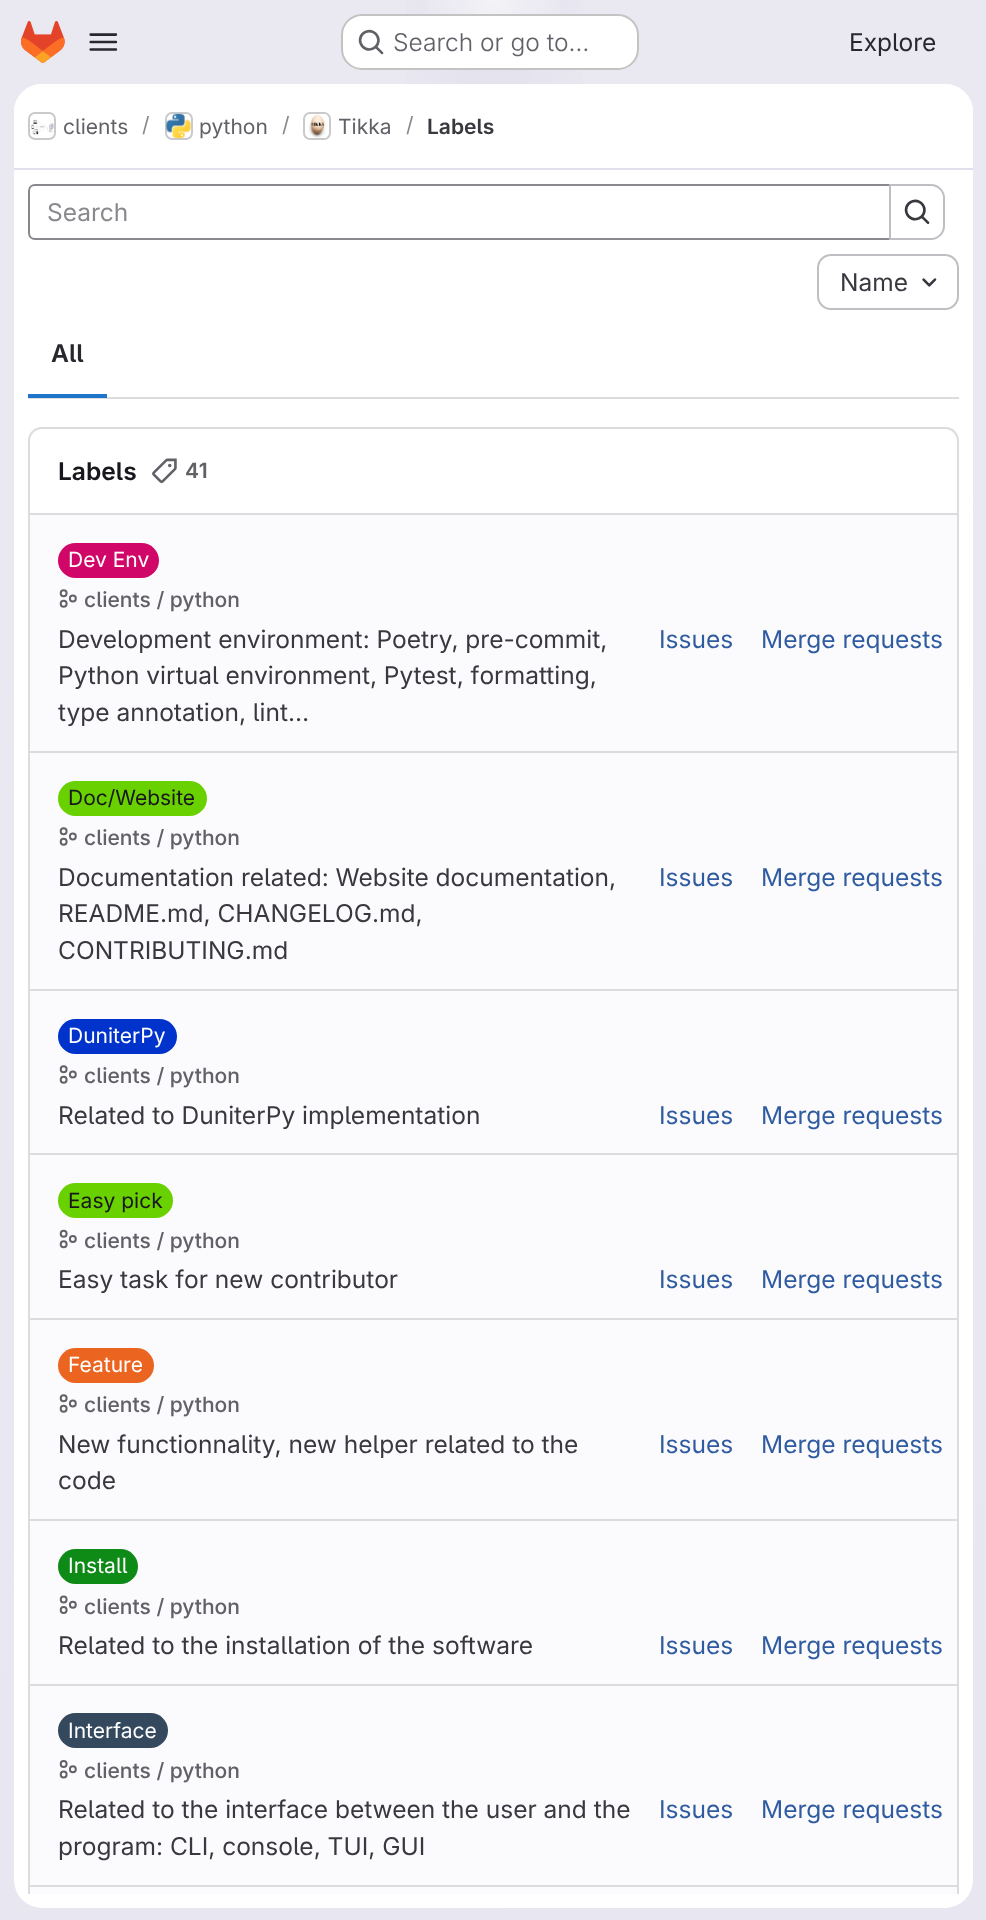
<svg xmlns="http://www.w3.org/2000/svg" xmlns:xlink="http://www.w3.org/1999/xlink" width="986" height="1920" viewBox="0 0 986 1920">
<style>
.cls-1{font:300 24.5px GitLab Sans;fill:#626168}
.cls-2{font:24.5px GitLab Sans;fill:#28272d}
.cls-3{font:21px GitLab Sans;fill:#626168}
.cls-4{font:21px GitLab Sans;fill:#89888d}
.cls-5{font:600 21px GitLab Sans;fill:#3a383f}
.cls-6{font:24.5px GitLab Sans;fill:#89888d}
.cls-7{font:24.5px GitLab Sans;fill:#3a383f}
.cls-8{font:600 24.5px GitLab Sans;fill:#28272d}
.cls-9{font:600 24.5px GitLab Sans;fill:#18171d}
.cls-10{font:600 21px GitLab Sans;fill:#626168}
.cls-11{font:21px GitLab Sans;fill:#ffffff}
.cls-12{font:500 21px GitLab Sans;fill:#626168}
.cls-13{font:24.5px GitLab Sans;fill:#2f5ca0}
.cls-14{font:21px GitLab Sans;fill:#18171d}
</style>
<defs>
<linearGradient id="g1" gradientUnits="userSpaceOnUse" x1="673" y1="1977" x2="314" y2="-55"><stop offset="0" stop-color="#e8e6f0"/><stop offset="0.7" stop-color="#eae9f2"/></linearGradient>
<radialGradient id="g2" gradientUnits="userSpaceOnUse" cx="0" cy="0" r="1" gradientTransform="matrix(494 0 0 1922 494 0)"><stop offset="0" stop-color="#e4e2ed"/><stop offset="0.25" stop-color="#e4e2ed" stop-opacity="0"/></radialGradient>
<radialGradient id="g3" gradientUnits="userSpaceOnUse" cx="0" cy="0" r="1" gradientTransform="matrix(494 0 0 1922 494 0)"><stop offset="0" stop-color="#e4e2ec"/><stop offset="0.18" stop-color="#e4e2ec" stop-opacity="0"/></radialGradient>
<radialGradient id="g4" gradientUnits="userSpaceOnUse" cx="494" cy="0" r="1984"><stop offset="0" stop-color="#ffffff" stop-opacity="0.6"/><stop offset="0.04" stop-color="#ffffff" stop-opacity="0"/></radialGradient>
<clipPath id="clip1"><rect x="14" y="170" width="959" height="1724"/></clipPath>
</defs>
<rect width="100%" height="100%" fill="#ffffff"/>
<rect fill="url(#g1)" x="0" y="0" width="986" height="1920"/>
<rect fill="url(#g2)" x="405" y="0" width="178" height="84"/>
<rect fill="url(#g3)" x="457" y="0" width="74" height="84"/>
<rect fill="url(#g4)" x="428" y="0" width="132" height="68"/>
<image xlink:href="image0.png" x="21" y="21" width="44" height="42"/>
<image xlink:href="image1.png" x="89" y="33" width="29" height="18"/>
<rect fill="#ffffff" x="341" y="14" width="298" height="56" rx="21"/>
<rect fill="none" stroke="#050506" stroke-opacity="0.24" stroke-width="2" x="342" y="15" width="296" height="54" rx="20"/>
<image xlink:href="image2.png" x="358" y="29" width="26" height="26"/>
<rect fill="#ffffff" x="14" y="84" width="959" height="1824" rx="28"/>
<path fill="#ffffff" d="M42 84H945C960.5 84 973 96.5 973 112V170H14V112C14 96.5 26.5 84 42 84Z"/>
<rect fill="#e1dfec" x="14" y="168" width="959" height="2"/>
<rect fill="none" stroke="#dcdcde" stroke-width="2" x="29" y="113" width="26" height="26" rx="6"/>
<image xlink:href="image3.png" x="31" y="119" width="23" height="16"/>
<rect fill="none" stroke="#050506" stroke-opacity="0.08" stroke-width="2" x="29" y="113" width="26" height="26" rx="6"/>
<rect fill="none" stroke="#dcdcde" stroke-width="2" x="166" y="113" width="26" height="26" rx="6"/>
<image xlink:href="image4.png" x="166" y="113" width="25" height="26"/>
<rect fill="none" stroke="#050506" stroke-opacity="0.08" stroke-width="2" x="166" y="113" width="26" height="26" rx="6"/>
<rect fill="none" stroke="#dcdcde" stroke-width="2" x="304" y="113" width="26" height="26" rx="6"/>
<image xlink:href="image5.png" x="308" y="114" width="19" height="24"/>
<rect fill="none" stroke="#050506" stroke-opacity="0.08" stroke-width="2" x="304" y="113" width="26" height="26" rx="6"/>
<rect fill="#dcdcde" x="28" y="397" width="931" height="2"/>
<path fill="none" stroke="#89888d" stroke-width="2" d="M35 185H890V239H35C31.5 239 29 236.5 29 233V191C29 187.5 31.5 185 35 185Z"/>
<path fill="#ffffff" stroke="#bfbfc3" stroke-width="2" d="M890 185H931C938 185 944 191 944 198V226C944 233 938 239 931 239H890Z"/>
<image xlink:href="image6.png" x="904" y="199" width="26" height="25"/>
<rect fill="none" stroke="#bfbfc3" stroke-width="2" x="818" y="255" width="140" height="54" rx="13"/>
<image xlink:href="image7.png" x="922" y="278" width="15" height="9"/>
<rect fill="#1f75cb" x="28" y="394" width="79" height="4"/>
<path fill="#fbfafd" d="M42 427H945C952.5 427 959 433.5 959 441V1894H28V441C28 433.5 34.5 427 42 427Z"/>
<g clip-path="url(#clip1)">
<path fill="#dcdcde" d="M42 427C34 427 28 433 28 441V1904L30 1905V441C30 434 35 429 42 429H945C952 429 957 434 957 441V1905L959 1904V441C959 433 953 427 945 427Z"/>
</g>
<path fill="#ffffff" d="M44 429H943C950.5 429 957 435.5 957 443V515H30V443C30 435.5 36.5 429 44 429Z"/>
<rect fill="#dcdcde" x="30" y="513" width="927" height="2"/>
<image xlink:href="image8.png" x="152" y="458" width="25" height="26"/>
<rect fill="#dcdcde" x="30" y="751" width="927" height="2"/>
<rect fill="#d10669" x="58" y="543" width="101" height="35" rx="17.5"/>
<image xlink:href="image9.png" x="59" y="589" width="18" height="19"/>
<rect fill="#dcdcde" x="30" y="989" width="927" height="2"/>
<rect fill="#69d100" x="58" y="781" width="149" height="35" rx="17.5"/>
<image xlink:href="image9.png" x="59" y="827" width="18" height="19"/>
<rect fill="#dcdcde" x="30" y="1153" width="927" height="2"/>
<rect fill="#0033cc" x="58" y="1019" width="119" height="35" rx="17.5"/>
<image xlink:href="image9.png" x="59" y="1065" width="18" height="19"/>
<rect fill="#dcdcde" x="30" y="1318" width="927" height="2"/>
<rect fill="#69d100" x="58" y="1183" width="115" height="35" rx="17.5"/>
<image xlink:href="image10.png" x="59" y="1229" width="18" height="20"/>
<rect fill="#dcdcde" x="30" y="1519" width="927" height="2"/>
<rect fill="#eb6420" x="58" y="1348" width="96" height="35" rx="17.5"/>
<image xlink:href="image9.png" x="59" y="1394" width="18" height="19"/>
<rect fill="#dcdcde" x="30" y="1684" width="927" height="2"/>
<rect fill="#0e8a16" x="58" y="1549" width="80" height="35" rx="17.5"/>
<image xlink:href="image11.png" x="59" y="1595" width="18" height="19"/>
<rect fill="#dcdcde" x="30" y="1885" width="927" height="2"/>
<rect fill="#34495e" x="58" y="1713" width="110" height="35" rx="17.5"/>
<image xlink:href="image12.png" x="59" y="1760" width="18" height="19"/>
<text class="cls-1" x="393" y="51">Search or go to…</text>
<text class="cls-2" x="849" y="51">Explore</text>
<text class="cls-3" x="63" y="134">clients</text>
<text class="cls-4" x="142" y="132">/</text>
<text class="cls-3" x="199" y="134">python</text>
<text class="cls-4" x="282" y="132">/</text>
<text class="cls-3" x="338" y="134">Tikka</text>
<text class="cls-4" x="406" y="132">/</text>
<text class="cls-5" x="427" y="134">Labels</text>
<text class="cls-6" x="47" y="221">Search</text>
<text class="cls-7" x="840" y="291">Name</text>
<text class="cls-8" x="51" y="362">All</text>
<text class="cls-9" x="58" y="480">Labels</text>
<text class="cls-10" x="185" y="478">41</text>
<text class="cls-11" x="68" y="567">Dev Env</text>
<text class="cls-12" x="84" y="607">clients / python</text>
<text class="cls-7"><tspan x="58" y="648">Development environment: Poetry, pre-commit,</tspan><tspan x="58" y="684">Python virtual environment, Pytest, formatting,</tspan><tspan x="58" y="721">type annotation, lint…</tspan></text>
<text class="cls-13" x="659" y="648">Issues</text>
<text class="cls-13" x="761" y="648">Merge requests</text>
<text class="cls-14" x="68" y="805">Doc/Website</text>
<text class="cls-12" x="84" y="845">clients / python</text>
<text class="cls-7"><tspan x="58" y="886">Documentation related: Website documentation,</tspan><tspan x="58" y="922">README.md, CHANGELOG.md,</tspan><tspan x="58" y="959">CONTRIBUTING.md</tspan></text>
<text class="cls-13" x="659" y="886">Issues</text>
<text class="cls-13" x="761" y="886">Merge requests</text>
<text class="cls-11" x="68" y="1043">DuniterPy</text>
<text class="cls-12" x="84" y="1083">clients / python</text>
<text class="cls-7" x="58" y="1124">Related to DuniterPy implementation</text>
<text class="cls-13" x="659" y="1124">Issues</text>
<text class="cls-13" x="761" y="1124">Merge requests</text>
<text class="cls-14" x="68" y="1208">Easy pick</text>
<text class="cls-12" x="84" y="1248">clients / python</text>
<text class="cls-7" x="58" y="1288">Easy task for new contributor</text>
<text class="cls-13" x="659" y="1288">Issues</text>
<text class="cls-13" x="761" y="1288">Merge requests</text>
<text class="cls-11" x="68" y="1372">Feature</text>
<text class="cls-12" x="84" y="1412">clients / python</text>
<text class="cls-7"><tspan x="58" y="1453">New functionnality, new helper related to the</tspan><tspan x="58" y="1489">code</tspan></text>
<text class="cls-13" x="659" y="1453">Issues</text>
<text class="cls-13" x="761" y="1453">Merge requests</text>
<text class="cls-11" x="68" y="1573">Install</text>
<text class="cls-12" x="84" y="1614">clients / python</text>
<text class="cls-7" x="58" y="1654">Related to the installation of the software</text>
<text class="cls-13" x="659" y="1654">Issues</text>
<text class="cls-13" x="761" y="1654">Merge requests</text>
<text class="cls-11" x="68" y="1738">Interface</text>
<text class="cls-12" x="84" y="1778">clients / python</text>
<text class="cls-7"><tspan x="58" y="1818">Related to the interface between the user and the</tspan><tspan x="58" y="1855">program: CLI, console, TUI, GUI</tspan></text>
<text class="cls-13" x="659" y="1818">Issues</text>
<text class="cls-13" x="761" y="1818">Merge requests</text>
</svg>
